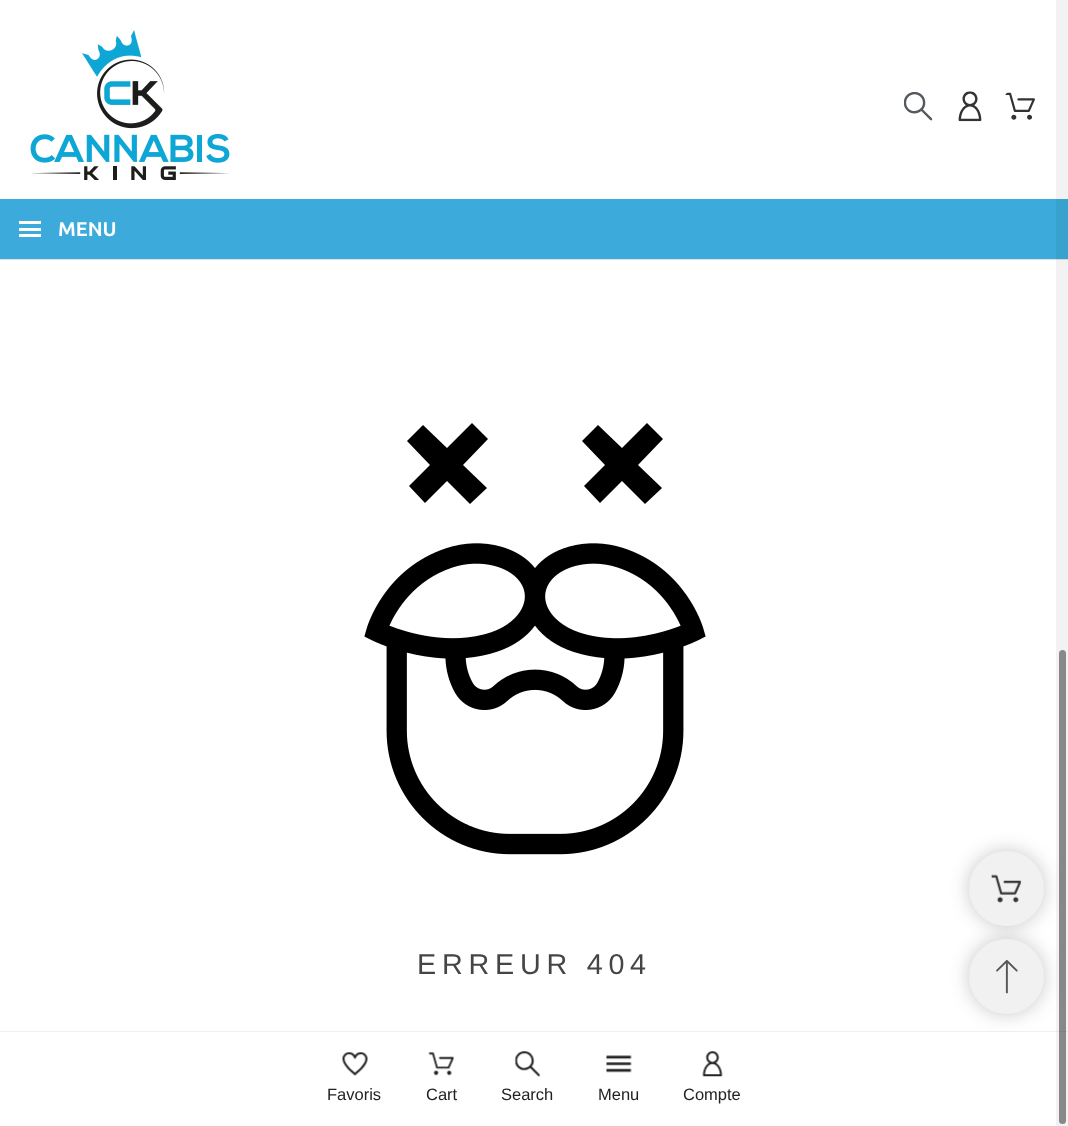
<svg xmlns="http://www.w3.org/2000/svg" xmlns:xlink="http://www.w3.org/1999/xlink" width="1068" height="1126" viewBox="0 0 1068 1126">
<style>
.cls-1{font:bold 20px Ubuntu;fill:#ffffff}
.cls-2{font:28.75px Liberation Sans;letter-spacing:5.75px;fill:#454545}
.cls-3{font:16.5px Liberation Sans;fill:#222222}
</style>
<rect width="100%" height="100%" fill="#ffffff"/>
<rect fill="#e1e1e1" x="0" y="259" width="1068" height="1"/>
<image xlink:href="image0.png" x="30" y="30" width="200" height="150"/>
<image xlink:href="image1.png" x="904" y="92" width="29" height="29"/>
<image xlink:href="image2.png" x="958" y="91" width="24" height="31"/>
<image xlink:href="image3.png" x="1005" y="92" width="30" height="28"/>
<rect fill="#3cabdb" x="0" y="199" width="1068" height="60"/>
<rect fill="#ffffff" x="19" y="221" width="22" height="3"/>
<rect fill="#ffffff" x="19" y="228" width="22" height="3"/>
<rect fill="#ffffff" x="19" y="234" width="22" height="3"/>
<rect fill="#000000" fill-opacity="0.22" filter="blur(9.5px)" x="969" y="851" width="75" height="75" rx="37.5"/>
<rect fill="#000000" fill-opacity="0.06" x="0" y="1031" width="1068" height="1"/>
<rect fill="#000000" fill-opacity="0.22" filter="blur(9.5px)" x="969" y="939" width="75" height="75" rx="37.5"/>
<rect fill="#000000" fill-opacity="0.05" x="1056" y="0" width="12" height="1126"/>
<rect fill="#000000" fill-opacity="0.44" x="1059" y="650" width="7" height="474" rx="3.5"/>
<path fill="#000000" d="M488 439L472 423L447 448L423 425L407 441L430 465L409 486L425 503L447 481L470 504L487 488L463 465Z"/>
<path fill="#000000" d="M663 439L647 423L622 448L598 425L582 441L605 465L584 486L600 503L622 481L645 504L662 488L638 465Z"/>
<image xlink:href="image4.png" x="364" y="543" width="342" height="312"/>
<circle fill="#f1f1f1" cx="1006.5" cy="888.5" r="37.5"/>
<image xlink:href="image5.png" x="990" y="874" width="32" height="29"/>
<circle fill="#f1f1f1" cx="1006.5" cy="976.5" r="37.5"/>
<image xlink:href="image6.png" x="996" y="960" width="22" height="34"/>
<image xlink:href="image7.png" x="342" y="1052" width="26" height="24"/>
<image xlink:href="image8.png" x="428" y="1052" width="26" height="24"/>
<image xlink:href="image9.png" x="514" y="1051" width="27" height="26"/>
<image xlink:href="image10.png" x="606" y="1055" width="26" height="18"/>
<image xlink:href="image11.png" x="702" y="1051" width="21" height="26"/>
<text class="cls-1" x="58" y="236">MENU</text>
<text class="cls-2" x="417" y="974">ERREUR 404</text>
<text class="cls-3" x="327" y="1100">Favoris</text>
<text class="cls-3" x="426" y="1100">Cart</text>
<text class="cls-3" x="501" y="1100">Search</text>
<text class="cls-3" x="598" y="1100">Menu</text>
<text class="cls-3" x="683" y="1100">Compte</text>
</svg>
